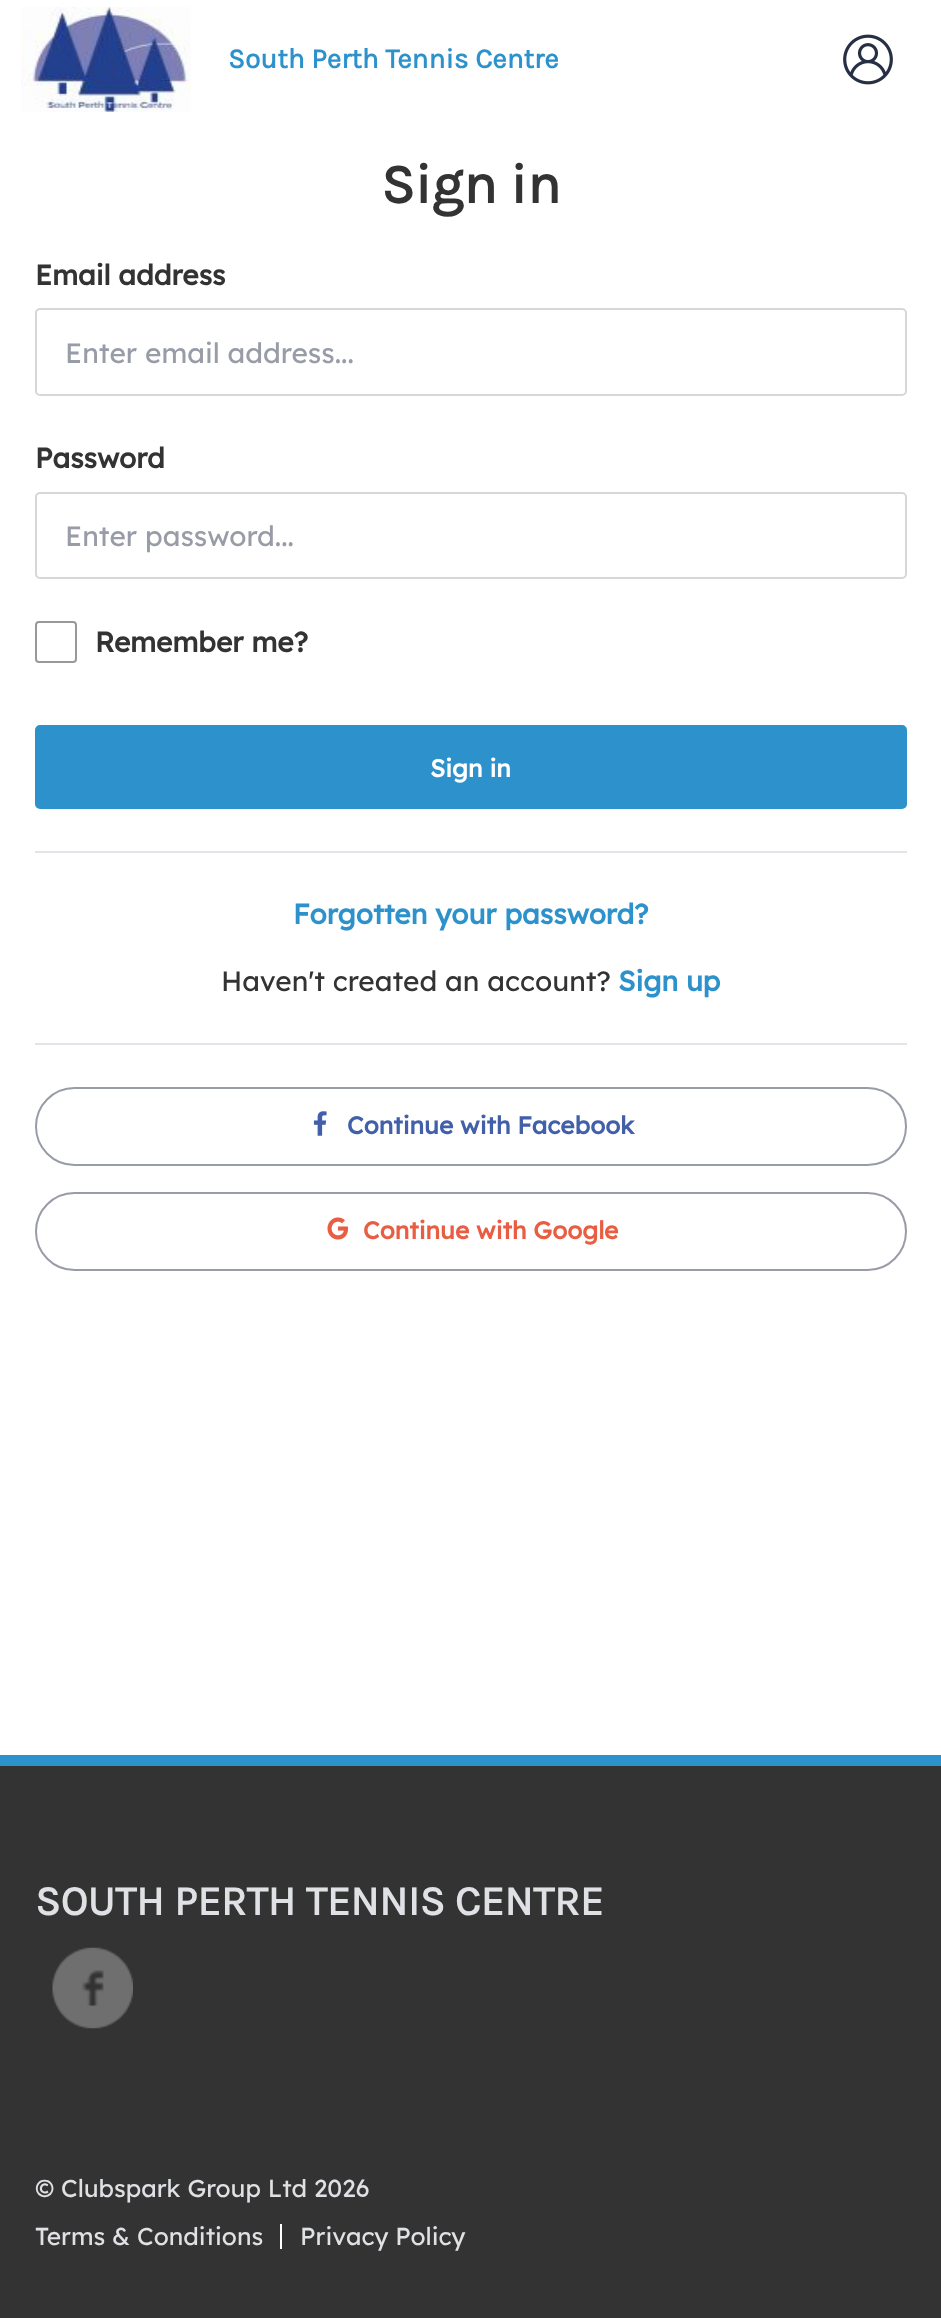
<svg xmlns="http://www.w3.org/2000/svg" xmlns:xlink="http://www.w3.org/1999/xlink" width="941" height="2318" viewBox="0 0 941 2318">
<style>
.cls-1{font:bold 28px Karla;fill:#2d92cc}
.cls-2{font:bold 56px Karla;fill:#333333}
.cls-3{font:bold 28px Lexend;fill:#333333}
.cls-4{font:28px Lexend;fill:#989ca7}
.cls-5{font:bold 24.5px Lexend;fill:#ffffff}
.cls-6{font:bold 28px Lexend;fill:#2d92cc}
.cls-7{font:28px Lexend;fill:#333333}
.cls-8{font:bold 24.5px Lexend;fill:#4260aa}
.cls-9{font:bold 24.5px Lexend;fill:#e95e43}
.cls-10{font:bold 42px Karla;fill:#dfe1e4}
.cls-11{font:24.5px Lexend;fill:#dfe1e4}
</style>
<rect width="100%" height="100%" fill="#333333"/>
<rect fill="#ffffff" x="0" y="0" width="941" height="123"/>
<image xlink:href="image0.png" x="21" y="7" width="170" height="105"/>
<image xlink:href="image1.png" x="843" y="34" width="50" height="51"/>
<rect fill="#ffffff" x="0" y="123" width="941" height="1632"/>
<rect fill="none" stroke="#d7d7d7" stroke-width="2" x="36" y="309" width="870" height="86" rx="4"/>
<rect fill="none" stroke="#d7d7d7" stroke-width="2" x="36" y="493" width="870" height="85" rx="4"/>
<rect fill="none" stroke="#999999" stroke-width="2" x="36" y="622" width="40" height="40" rx="3"/>
<rect fill="#2d92cc" stroke="#2d92cc" stroke-width="2" x="36" y="726" width="870" height="82" rx="4"/>
<rect fill="#e1e4e9" x="35" y="851" width="872" height="2"/>
<rect fill="#e1e4e9" x="35" y="1043" width="872" height="2"/>
<rect fill="none" stroke="#989ca7" stroke-width="2" x="36" y="1088" width="870" height="77" rx="38.5"/>
<image xlink:href="image2.png" x="313" y="1111" width="14" height="25"/>
<rect fill="none" stroke="#989ca7" stroke-width="2" x="36" y="1193" width="870" height="77" rx="38.5"/>
<image xlink:href="image3.png" x="327" y="1217" width="22" height="23"/>
<rect fill="#2d92cc" x="0" y="1755" width="941" height="11"/>
<image xlink:href="image4.png" x="52" y="1947" width="81" height="82"/>
<rect fill="#ffffff" x="280" y="2224" width="2" height="25"/>
<text class="cls-1" x="228" y="68">South Perth Tennis Centre</text>
<text class="cls-2" x="381" y="203">Sign in</text>
<text class="cls-3" x="35" y="285">Email address</text>
<text class="cls-4" x="65" y="363">Enter email address...</text>
<text class="cls-3" x="35" y="468">Password</text>
<text class="cls-4" x="65" y="546">Enter password...</text>
<text class="cls-3" x="95" y="652">Remember me?</text>
<text class="cls-5" x="430" y="777">Sign in</text>
<text class="cls-6" x="293" y="924">Forgotten your password?</text>
<text class="cls-7" x="221" y="991">Haven't created an account?</text>
<text class="cls-6" x="618" y="991">Sign up</text>
<text class="cls-8" x="347" y="1134">Continue with Facebook</text>
<text class="cls-9" x="363" y="1239">Continue with Google</text>
<text class="cls-10" x="35" y="1915">SOUTH PERTH TENNIS CENTRE</text>
<text class="cls-11"><tspan x="35" y="2197">© Clubspark Group Ltd 2026</tspan><tspan x="35" y="2245">Terms &amp; Conditions</tspan></text>
<text class="cls-11" x="300" y="2245">Privacy Policy</text>
</svg>
